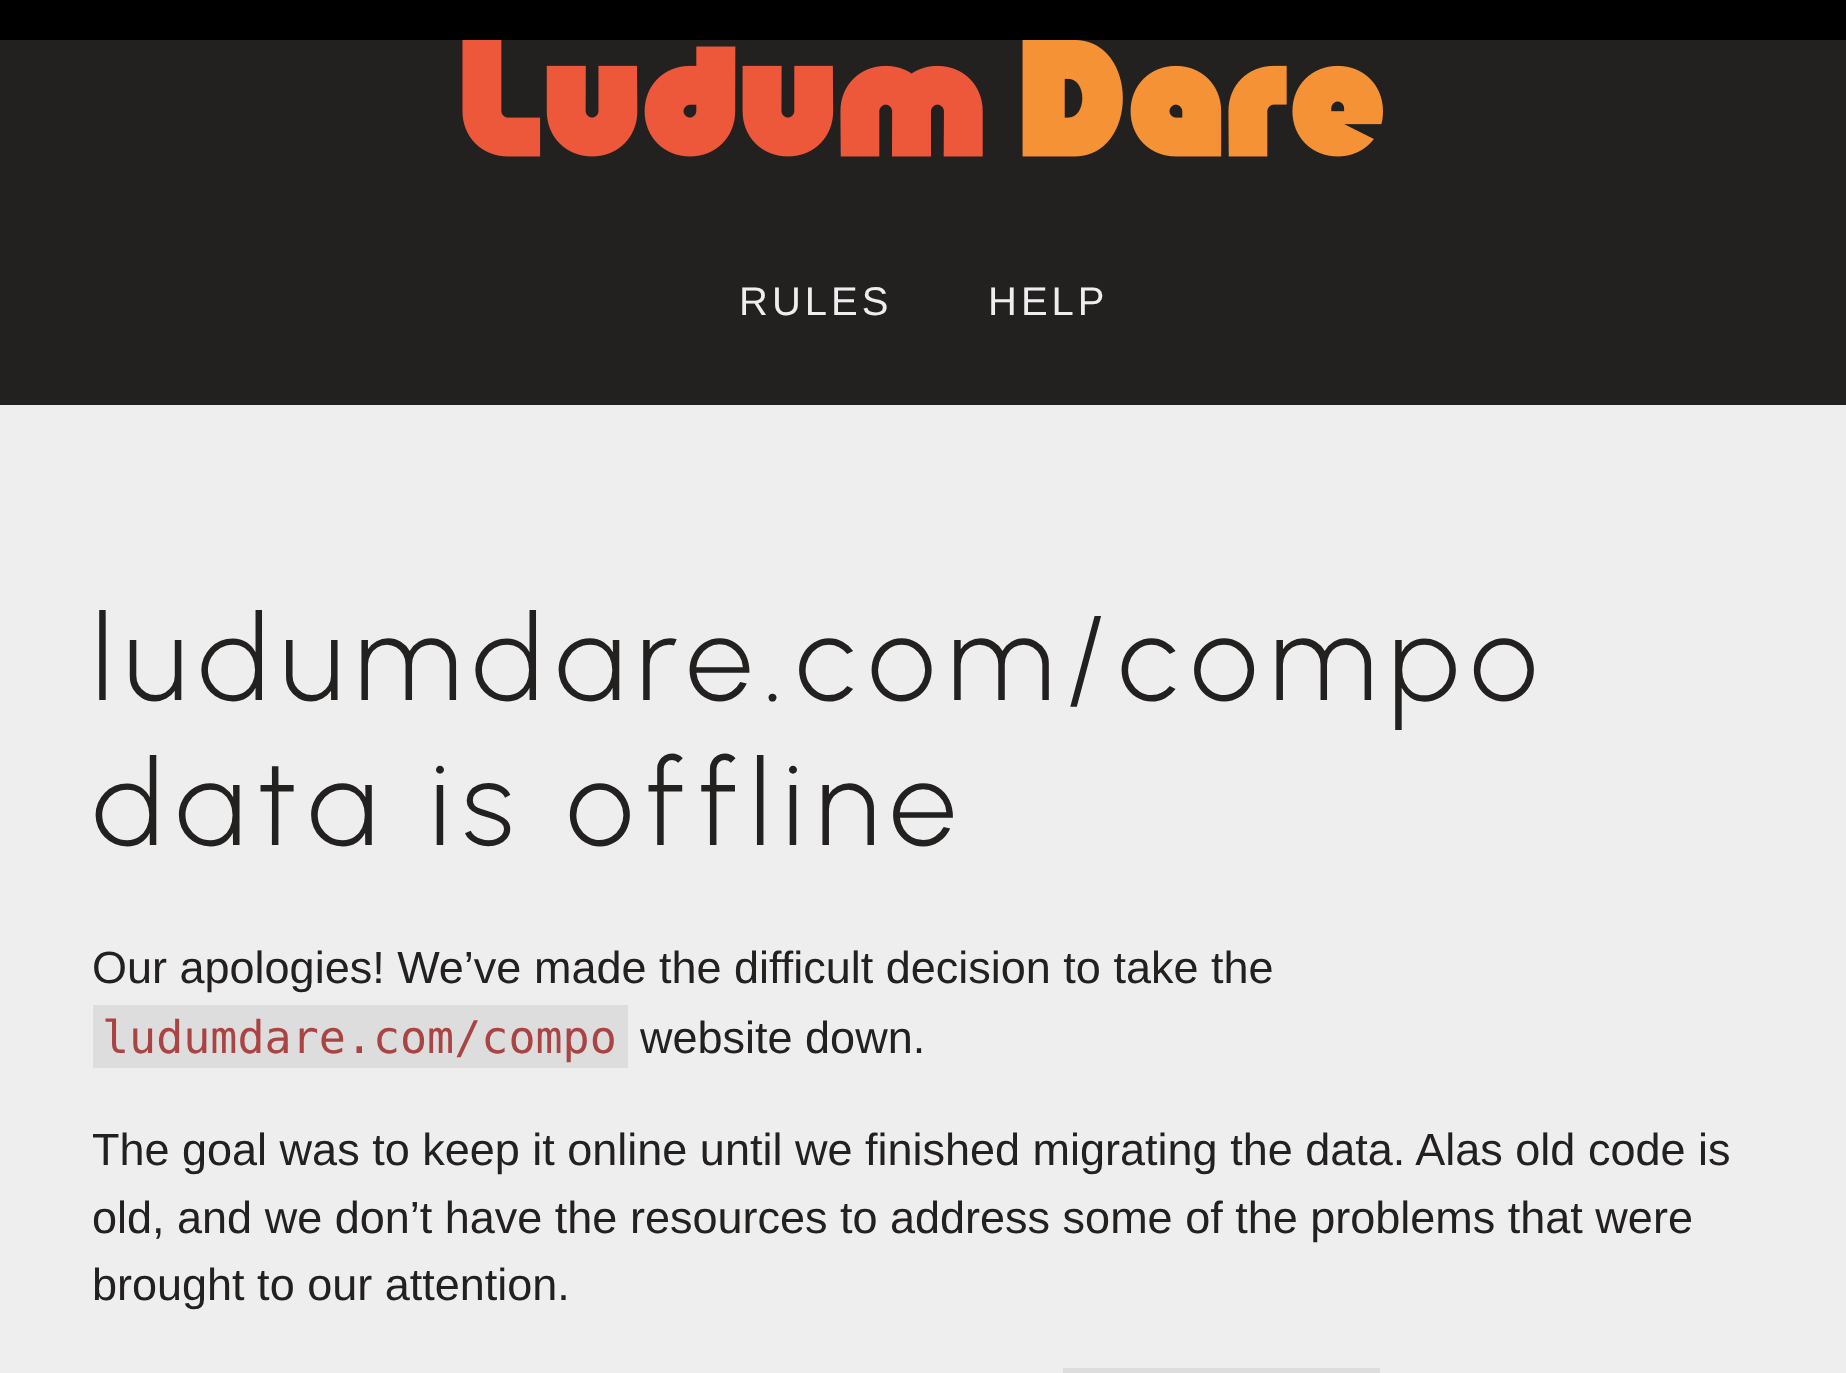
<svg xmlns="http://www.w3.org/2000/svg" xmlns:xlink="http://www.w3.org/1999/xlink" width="1846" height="1373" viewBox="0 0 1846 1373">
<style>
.cls-1{font:40px Liberation Sans;letter-spacing:4px;fill:#eeeeee}
.cls-2{font:300 120px Urbanist;letter-spacing:12px;fill:#232020}
.cls-3{font:45px Liberation Sans;fill:#232020}
.cls-4{font:45px DejaVu Sans Mono;fill:#aa4444}
</style>
<rect width="100%" height="100%" fill="#000000"/>
<rect fill="#eeeeee" x="0" y="405" width="1846" height="968"/>
<rect fill="#232020" x="0" y="40" width="1846" height="365"/>
<image xlink:href="image0.png" x="462" y="40" width="921" height="117"/>
<rect fill="#dddddd" x="93" y="1005" width="535" height="63"/>
<rect fill="#dddddd" x="1063" y="1368" width="317" height="5"/>
<text class="cls-1" x="739" y="315">RULES</text>
<text class="cls-1" x="988" y="315">HELP</text>
<text class="cls-2"><tspan x="92" y="700">ludumdare.com/compo</tspan><tspan x="92" y="845">data is offline</tspan></text>
<text class="cls-3" x="92" y="983">Our apologies! We’ve made the difficult decision to take the</text>
<text class="cls-4" x="102" y="1053">ludumdare.com/compo</text>
<text class="cls-3" x="640" y="1053">website down.</text>
<text class="cls-3"><tspan x="92" y="1165">The goal was to keep it online until we finished migrating the data. Alas old code is</tspan><tspan x="92" y="1233">old, and we don’t have the resources to address some of the problems that were</tspan><tspan x="92" y="1300">brought to our attention.</tspan></text>
</svg>
